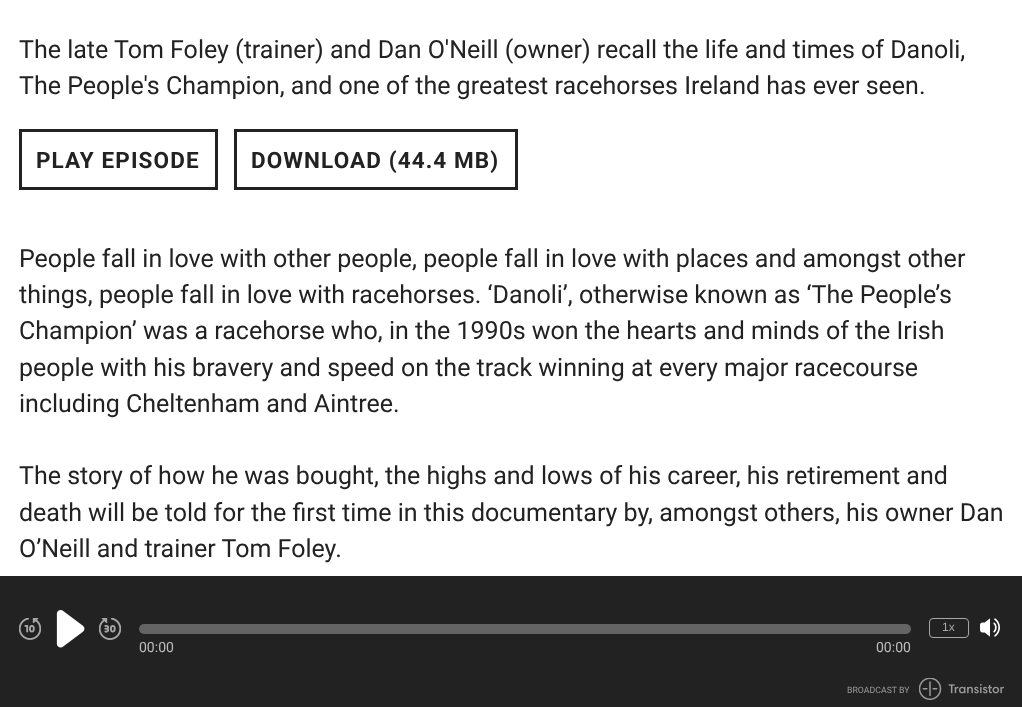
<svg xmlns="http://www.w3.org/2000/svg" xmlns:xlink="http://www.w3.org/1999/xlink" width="1022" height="707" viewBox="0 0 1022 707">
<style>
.cls-1{font:25px Roboto;fill:#222222}
.cls-2{font:bold 22.5px Roboto;letter-spacing:1.1px;fill:#222222}
.cls-3{font:12px Liberation Sans;fill:#a7a7a7}
.cls-4{font:14px Roboto;fill:#bdbdbd}
.cls-5{font:8.75px Roboto;fill:#9c9c9c}
</style>
<rect width="100%" height="100%" fill="#ffffff"/>
<rect fill="none" stroke="#222222" stroke-width="3" x="20.5" y="130.5" width="196" height="58"/>
<rect fill="none" stroke="#222222" stroke-width="3" x="235.5" y="130.5" width="281" height="58"/>
<rect fill="#222222" x="0" y="576" width="1022" height="131"/>
<image xlink:href="image0.png" x="19" y="618" width="22" height="22"/>
<image xlink:href="image1.png" x="56" y="610" width="29" height="38"/>
<image xlink:href="image2.png" x="99" y="618" width="22" height="22"/>
<rect fill="none" stroke="#a7a7a7" x="929.5" y="618.5" width="39" height="19" rx="3.5"/>
<image xlink:href="image3.png" x="980" y="618" width="20" height="19"/>
<rect fill="#646464" x="139" y="624" width="772" height="10" rx="5"/>
<image xlink:href="image4.png" x="919" y="678" width="85" height="22"/>
<text class="cls-1"><tspan x="19" y="58">The late Tom Foley (trainer) and Dan O'Neill (owner) recall the life and times of Danoli,</tspan><tspan x="19" y="94">The People's Champion, and one of the greatest racehorses Ireland has ever seen.</tspan></text>
<text class="cls-2" x="36" y="168">PLAY EPISODE</text>
<text class="cls-2" x="251" y="168">DOWNLOAD (44.4 MB)</text>
<text class="cls-1"><tspan x="19" y="267">People fall in love with other people, people fall in love with places and amongst other</tspan><tspan x="19" y="303">things, people fall in love with racehorses. ‘Danoli’, otherwise known as ‘The People’s</tspan><tspan x="19" y="339">Champion’ was a racehorse who, in the 1990s won the hearts and minds of the Irish</tspan><tspan x="19" y="376">people with his bravery and speed on the track winning at every major racecourse</tspan><tspan x="19" y="412">including Cheltenham and Aintree.</tspan></text>
<text class="cls-1"><tspan x="19" y="484">The story of how he was bought, the highs and lows of his career, his retirement and</tspan><tspan x="19" y="521">death will be told for the first time in this documentary by, amongst others, his owner Dan</tspan><tspan x="19" y="557">O’Neill and trainer Tom Foley.</tspan></text>
<text class="cls-3" x="942" y="631">1x</text>
<text class="cls-4" x="139" y="652">00:00</text>
<text class="cls-4" x="876" y="652">00:00</text>
<text class="cls-5" x="847" y="693">BROADCAST BY</text>
</svg>
